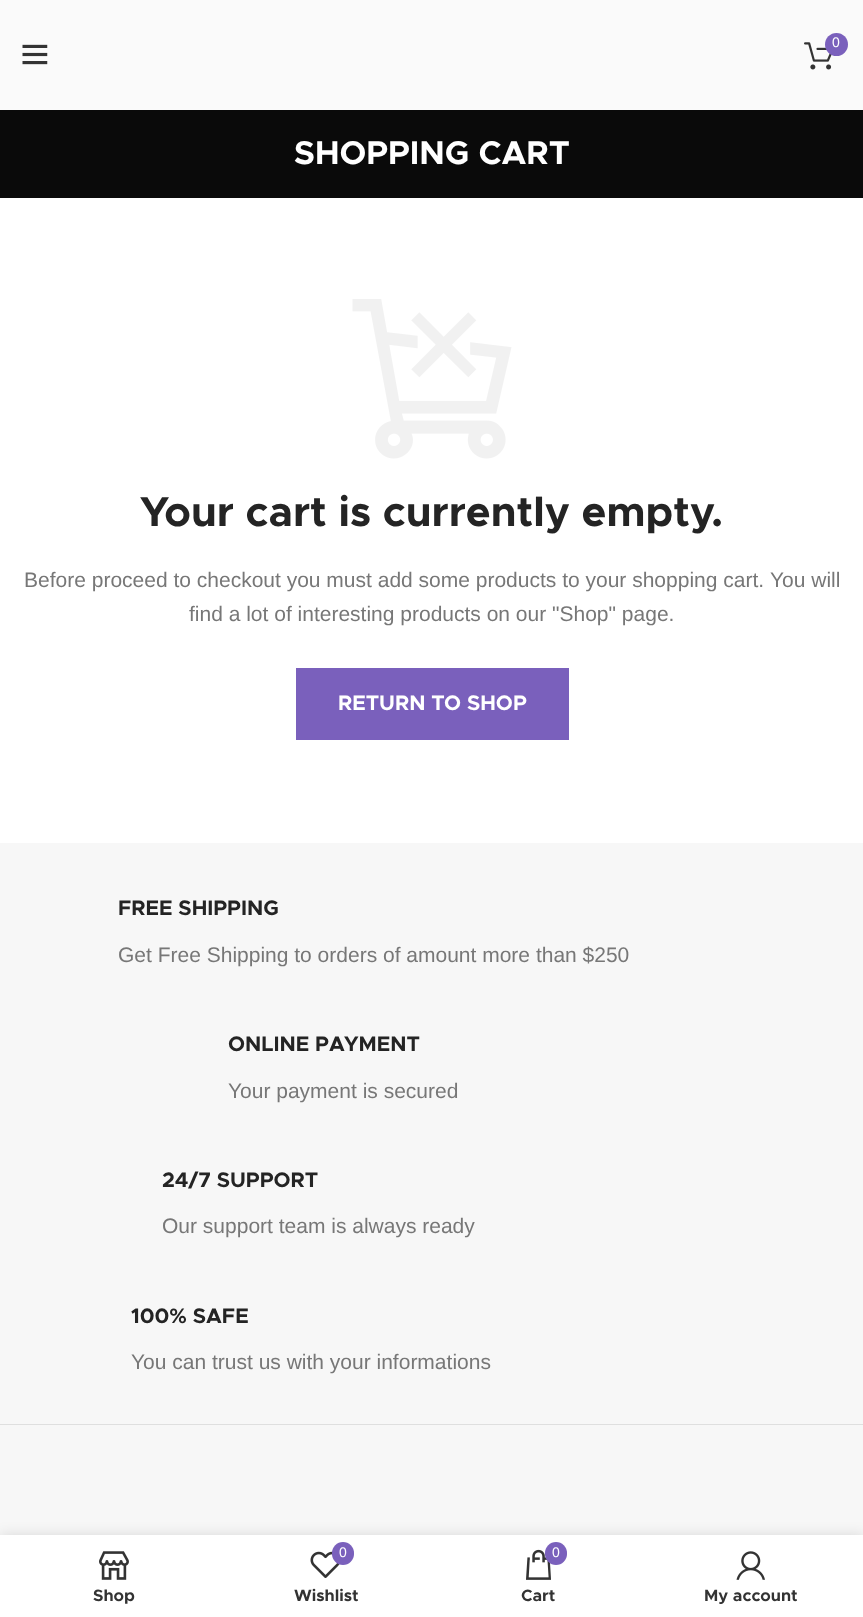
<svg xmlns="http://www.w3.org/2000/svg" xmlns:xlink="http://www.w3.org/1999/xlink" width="863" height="1617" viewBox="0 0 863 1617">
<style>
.cls-1{font:14px Liberation Sans;fill:#ffffff}
.cls-2{font:bold 33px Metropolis;fill:#ffffff}
.cls-3{font:bold 42px Metropolis;fill:#242424}
.cls-4{font:21px Liberation Sans;fill:#777777}
.cls-5{font:bold 21px Metropolis;fill:#ffffff}
.cls-6{font:bold 21px Metropolis;fill:#242424}
.cls-7{font:bold 16.5px Metropolis;fill:#333333}
</style>
<rect width="100%" height="100%" fill="#ffffff"/>
<rect fill="#fafafa" x="0" y="0" width="863" height="110"/>
<image xlink:href="image0.png" x="804" y="42" width="28" height="28"/>
<circle fill="#7a60bc" cx="836.5" cy="44.5" r="11.5"/>
<image xlink:href="image1.png" x="22" y="44" width="26" height="21"/>
<rect fill="#0a0a0a" x="0" y="110" width="863" height="88"/>
<image xlink:href="image2.png" x="352" y="299" width="160" height="160"/>
<rect fill="#7a60bc" x="296" y="668" width="273" height="72"/>
<rect fill="#f7f7f7" x="0" y="843" width="863" height="581"/>
<rect fill="#dfdfdf" x="0" y="1424" width="863" height="1"/>
<rect fill="#f7f7f7" x="0" y="1425" width="863" height="110"/>
<rect fill="#000000" fill-opacity="0.12" filter="blur(7px)" x="0" y="1535" width="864" height="82"/>
<rect fill="#ffffff" x="0" y="1535" width="863" height="82"/>
<image xlink:href="image3.png" x="99" y="1551" width="30" height="29"/>
<image xlink:href="image4.png" x="310" y="1551" width="30" height="27"/>
<rect fill="#7a60bc" x="332" y="1542" width="22" height="23" rx="11"/>
<image xlink:href="image5.png" x="526" y="1549" width="25" height="31"/>
<rect fill="#7a60bc" x="545" y="1542" width="22" height="23" rx="11"/>
<image xlink:href="image6.png" x="736" y="1551" width="29" height="29"/>
<text class="cls-1" x="832" y="47">0</text>
<text class="cls-2" x="294" y="164">SHOPPING CART</text>
<text class="cls-3" x="140" y="526">Your cart is currently empty.</text>
<text class="cls-4" x="24" y="587">Before proceed to checkout you must add some products to your shopping cart.</text>
<text class="cls-4" x="770" y="587">You will</text>
<text class="cls-4" x="189" y="621">find a lot of interesting products on our "Shop" page.</text>
<text class="cls-5" x="338" y="710">RETURN TO SHOP</text>
<text class="cls-6" x="118" y="915">FREE SHIPPING</text>
<text class="cls-4" x="118" y="962">Get Free Shipping to orders of amount more than $250</text>
<text class="cls-6" x="228" y="1051">ONLINE PAYMENT</text>
<text class="cls-4" x="228" y="1098">Your payment is secured</text>
<text class="cls-6" x="162" y="1187">24/7 SUPPORT</text>
<text class="cls-4" x="162" y="1233">Our support team is always ready</text>
<text class="cls-6" x="131" y="1323">100% SAFE</text>
<text class="cls-4" x="131" y="1369">You can trust us with your informations</text>
<text class="cls-7" x="93" y="1601">Shop</text>
<text class="cls-1" x="339" y="1557">0</text>
<text class="cls-7" x="294" y="1601">Wishlist</text>
<text class="cls-1" x="552" y="1557">0</text>
<text class="cls-7" x="521" y="1601">Cart</text>
<text class="cls-7" x="704" y="1601">My account</text>
</svg>
